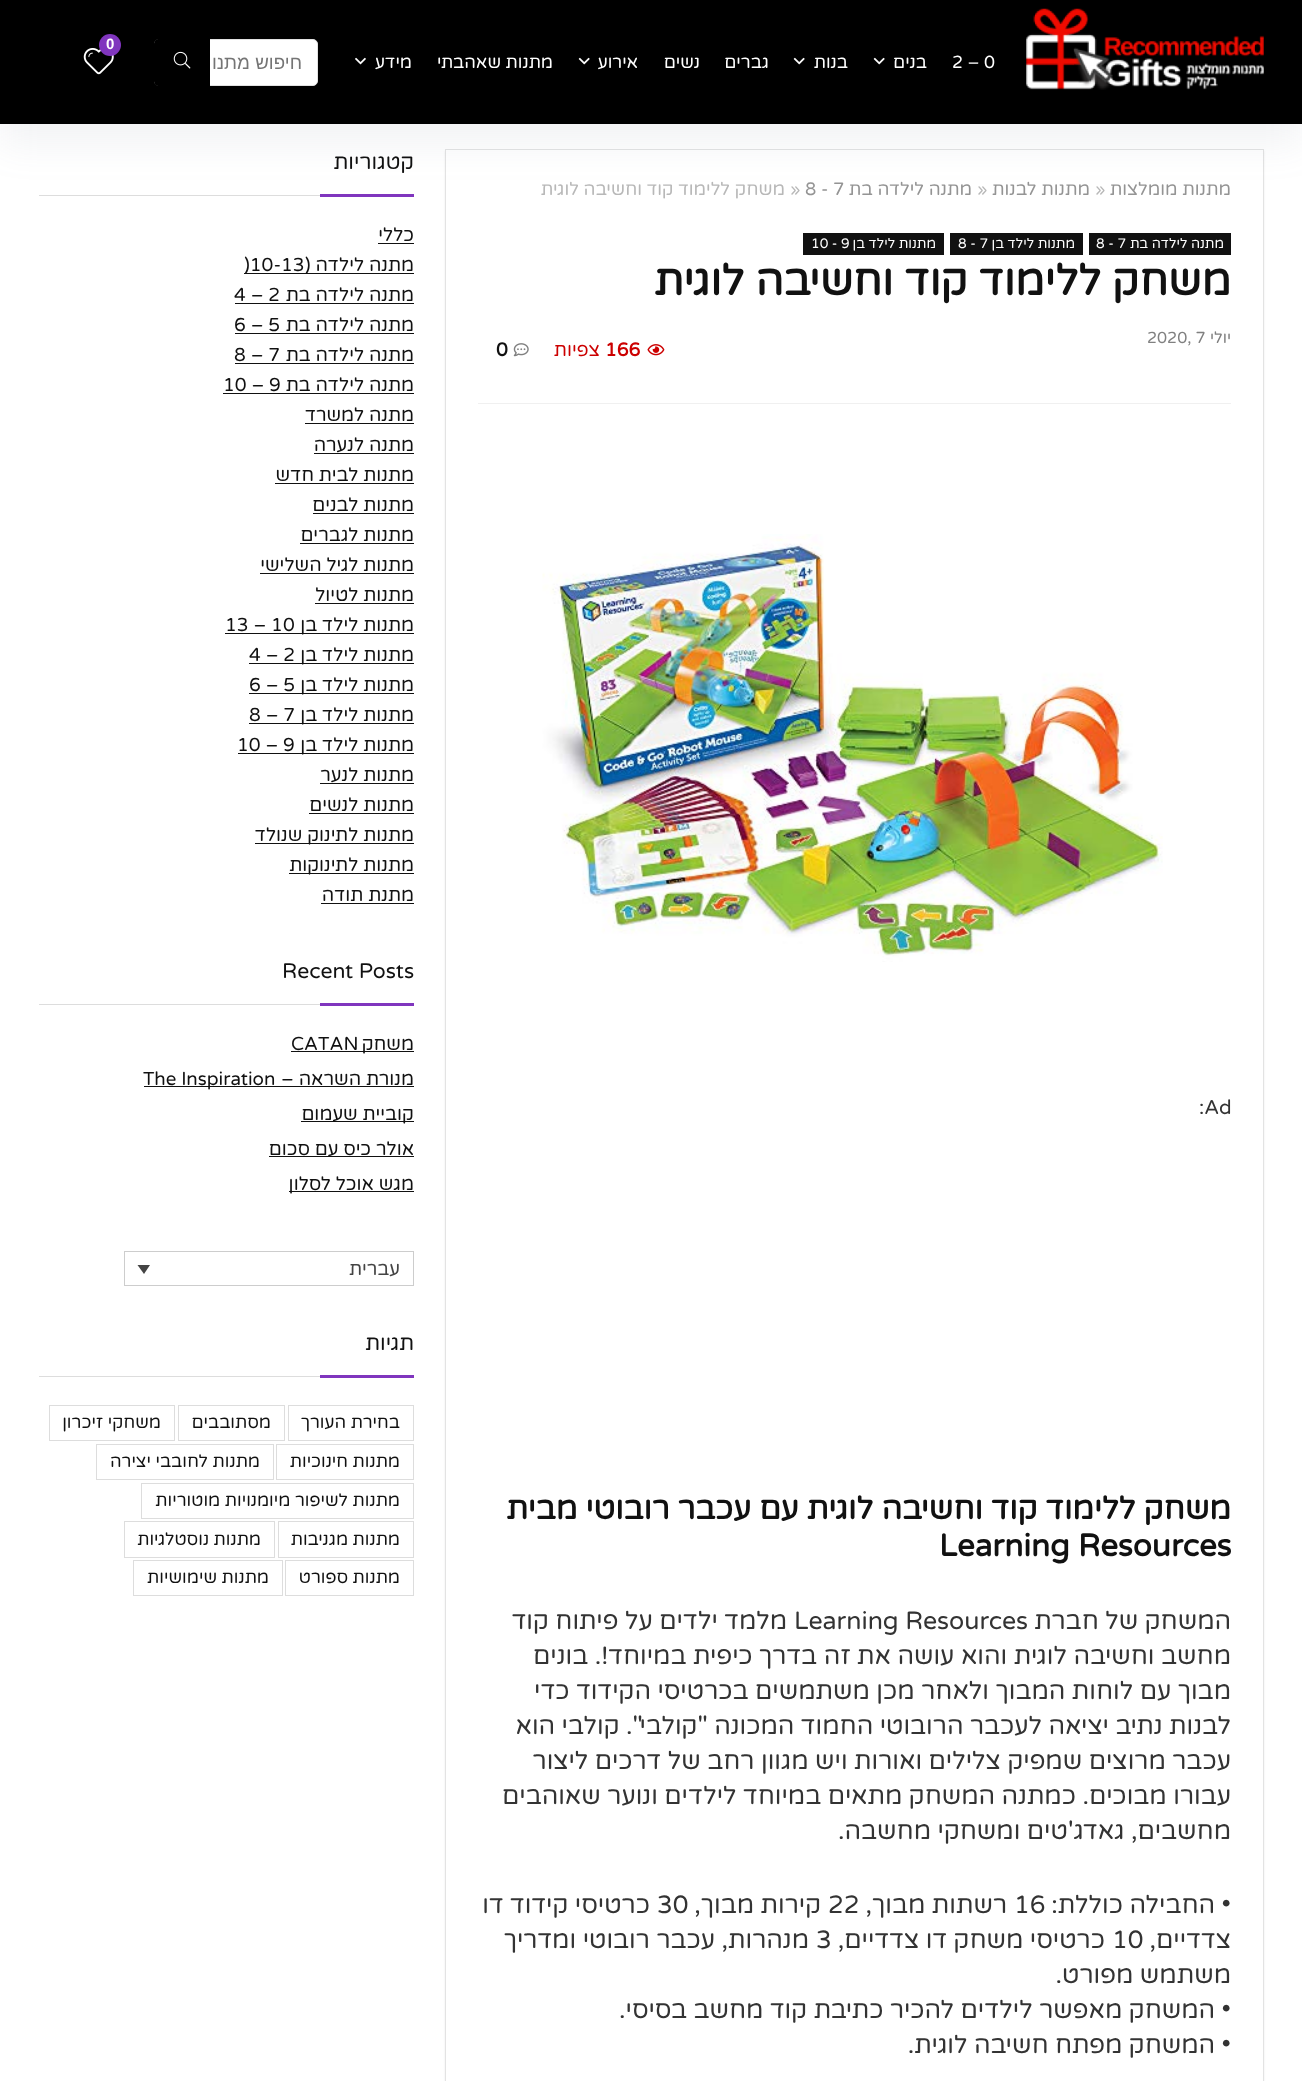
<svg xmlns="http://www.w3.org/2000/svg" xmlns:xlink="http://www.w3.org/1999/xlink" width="1302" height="2081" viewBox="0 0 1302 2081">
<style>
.cls-1{font:bold 15px Liberation Sans;fill:#ffffff}
.cls-2{font:17.5px Varela Round;fill:#ffffff}
.cls-3{font:17.5px Varela Round;direction:rtl;fill:#ffffff}
.cls-4{font:18.75px Liberation Sans;direction:rtl;fill:#757575}
.cls-5{font:18px Varela Round;direction:rtl;fill:#949494}
.cls-6{font:18px Varela Round;fill:#b8b8b8}
.cls-7{font:18px Varela Round;fill:#949494}
.cls-8{font:18px Varela Round;direction:rtl;fill:#b8b8b8}
.cls-9{font:13.75px Varela Round;direction:rtl;fill:#ffffff}
.cls-10{font:13.75px Varela Round;fill:#ffffff}
.cls-11{font:bold 42.5px Varela Round;direction:rtl;fill:#111111}
.cls-12{font:16px Varela Round;direction:rtl;fill:#808080}
.cls-13{font:16px Varela Round;fill:#808080}
.cls-14{font:bold 18.75px Varela Round;fill:#cc0000}
.cls-15{font:18.75px Varela Round;direction:rtl;fill:#cc0000}
.cls-16{font:bold 18.75px Varela Round;fill:#111111}
.cls-17{font:20px Varela Round;fill:#333333}
.cls-18{font:bold 31.25px Varela Round;direction:rtl;fill:#111111}
.cls-19{font:bold 31.25px Varela Round;fill:#111111}
.cls-20{font:25px Varela Round;direction:rtl;fill:#333333}
.cls-21{font:25px Varela Round;fill:#333333}
.cls-22{font:21.25px Varela Round;direction:rtl;fill:#111111}
.cls-23{font:18.75px Varela Round;direction:rtl;fill:#111111}
.cls-24{font:18.75px Varela Round;fill:#111111}
.cls-25{font:21.25px Varela Round;fill:#111111}
.cls-26{font:18.75px Varela Round;direction:rtl;fill:#444444}
.cls-27{font:17.5px Varela Round;direction:rtl;fill:#111111}
</style>
<defs>
<clipPath id="clip1"><path d="M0 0H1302V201H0ZM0 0H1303V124H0Z" clip-rule="evenodd"/></clipPath>
<clipPath id="clip2"><rect x="211" y="51" width="90" height="22"/></clipPath>
</defs>
<rect width="100%" height="100%" fill="#ffffff"/>
<rect fill="#000000" x="0" y="0" width="1302" height="124"/>
<rect fill="#ececec" filter="blur(1px)" x="445" y="151" width="819" height="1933"/>
<rect fill="#ffffff" stroke="#e3e3e3" x="445.5" y="149.5" width="818" height="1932"/>
<rect fill="#dddddd" x="39" y="195" width="281" height="1"/>
<rect fill="#8035be" x="320" y="194" width="94" height="3"/>
<g clip-path="url(#clip1)">
<rect fill="#777b92" fill-opacity="0.1" filter="blur(19px)" x="0" y="19" width="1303" height="124"/>
</g>
<image xlink:href="image0.png" x="1026" y="8" width="238" height="82"/>
<image xlink:href="image1.png" x="83" y="48" width="31" height="27"/>
<circle fill="#8035be" cx="110" cy="45" r="11"/>
<image xlink:href="image2.png" x="873" y="57" width="12" height="8"/>
<image xlink:href="image2.png" x="793" y="57" width="12" height="8"/>
<image xlink:href="image2.png" x="578" y="57" width="12" height="8"/>
<image xlink:href="image3.png" x="355" y="57" width="11" height="8"/>
<rect fill="#ffffff" stroke="#e1e1e1" x="154.5" y="39.5" width="163" height="46" rx="4.5"/>
<path fill="#000000" d="M159 39H210V86H159C156 86 154 84 154 81V44C154 41 156 39 159 39Z"/>
<image xlink:href="image4.png" x="173" y="51" width="18" height="18"/>
<rect fill="#111111" x="1089" y="233" width="142" height="22"/>
<rect fill="#111111" x="950" y="233" width="133" height="22"/>
<rect fill="#111111" x="803" y="233" width="141" height="22"/>
<rect fill="#f0f0f0" x="478" y="403" width="753" height="1"/>
<image xlink:href="image5.png" x="647" y="344" width="18" height="12"/>
<image xlink:href="image6.png" x="513" y="343" width="16" height="14"/>
<image xlink:href="image7.png" x="542" y="534" width="621" height="428"/>
<rect fill="#111111" x="378" y="243" width="36" height="1"/>
<rect fill="#111111" x="244" y="273" width="170" height="1"/>
<rect fill="#111111" x="235" y="303" width="179" height="1"/>
<rect fill="#111111" x="235" y="333" width="179" height="1"/>
<rect fill="#111111" x="235" y="363" width="179" height="1"/>
<rect fill="#111111" x="223" y="393" width="191" height="1"/>
<rect fill="#111111" x="305" y="423" width="109" height="1"/>
<rect fill="#111111" x="314" y="453" width="100" height="1"/>
<rect fill="#111111" x="275" y="483" width="139" height="1"/>
<rect fill="#111111" x="313" y="513" width="101" height="1"/>
<rect fill="#111111" x="300" y="543" width="114" height="1"/>
<rect fill="#111111" x="260" y="573" width="154" height="1"/>
<rect fill="#111111" x="315" y="603" width="99" height="1"/>
<rect fill="#111111" x="225" y="633" width="189" height="1"/>
<rect fill="#111111" x="249" y="663" width="165" height="1"/>
<rect fill="#111111" x="249" y="693" width="165" height="1"/>
<rect fill="#111111" x="249" y="723" width="165" height="1"/>
<rect fill="#111111" x="238" y="753" width="176" height="1"/>
<rect fill="#111111" x="320" y="783" width="94" height="1"/>
<rect fill="#111111" x="309" y="813" width="105" height="1"/>
<rect fill="#111111" x="255" y="843" width="159" height="1"/>
<rect fill="#111111" x="289" y="873" width="125" height="1"/>
<rect fill="#111111" x="321" y="903" width="93" height="1"/>
<rect fill="#dddddd" x="39" y="1004" width="281" height="1"/>
<rect fill="#8035be" x="320" y="1003" width="94" height="3"/>
<rect fill="#111111" x="291" y="1051" width="123" height="1"/>
<rect fill="#111111" x="144" y="1086" width="270" height="1"/>
<rect fill="#111111" x="301" y="1121" width="113" height="1"/>
<rect fill="#111111" x="269" y="1156" width="145" height="1"/>
<rect fill="#111111" x="289" y="1191" width="125" height="1"/>
<rect fill="none" stroke="#cdcdcd" x="124.5" y="1251.5" width="289" height="34"/>
<path fill="#444444" d="M137.5 1265H150L144 1274Z"/>
<rect fill="#dddddd" x="39" y="1376" width="281" height="1"/>
<rect fill="#8035be" x="320" y="1375" width="94" height="3"/>
<rect fill="none" stroke="#dddddd" x="288.5" y="1405.5" width="125" height="35"/>
<rect fill="none" stroke="#dddddd" x="178.5" y="1405.5" width="106" height="35"/>
<rect fill="none" stroke="#dddddd" x="49.5" y="1405.5" width="125" height="35"/>
<rect fill="none" stroke="#dddddd" x="276.5" y="1444.5" width="137" height="35"/>
<rect fill="none" stroke="#dddddd" x="96.5" y="1444.5" width="177" height="35"/>
<rect fill="none" stroke="#dddddd" x="141.5" y="1483.5" width="272" height="35"/>
<rect fill="none" stroke="#dddddd" x="278.5" y="1521.5" width="135" height="36"/>
<rect fill="none" stroke="#dddddd" x="124.5" y="1521.5" width="150" height="36"/>
<rect fill="none" stroke="#dddddd" x="285.5" y="1560.5" width="128" height="35"/>
<rect fill="none" stroke="#dddddd" x="133.5" y="1560.5" width="149" height="35"/>
<text class="cls-1" x="106" y="49">0</text>
<text class="cls-2" x="952" y="68">2 – 0</text>
<text class="cls-3" x="927" y="68">בנים</text>
<text class="cls-3" x="848" y="68">בנות</text>
<text class="cls-3" x="769" y="68">גברים</text>
<text class="cls-3" x="700" y="68">נשים</text>
<text class="cls-3" x="638" y="68">אירוע</text>
<text class="cls-3" x="553" y="68">מתנות שאהבתי</text>
<text class="cls-3" x="412" y="68">מידע</text>
<g clip-path="url(#clip2)">
<text class="cls-4" x="302" y="69">חיפוש מתנות</text>
</g>
<text class="cls-5" x="1231" y="195">מתנות מומלצות</text>
<text class="cls-6" x="1095" y="195">»</text>
<text class="cls-5" x="1090" y="195">מתנות לבנות</text>
<text class="cls-6" x="977" y="195">»</text>
<text class="cls-5" x="972" y="195">מתנה לילדה בת</text>
<text class="cls-7" x="805" y="195">8 - 7</text>
<text class="cls-6" x="790" y="195">»</text>
<text class="cls-8" x="785" y="195">משחק ללימוד קוד וחשיבה לוגית</text>
<text class="cls-9" x="1224" y="248">מתנה לילדה בת</text>
<text class="cls-10" x="1096" y="248">8 - 7</text>
<text class="cls-9" x="1075" y="248">מתנות לילד בן</text>
<text class="cls-10" x="958" y="248">8 - 7</text>
<text class="cls-9" x="936" y="248">מתנות לילד בן</text>
<text class="cls-10" x="811" y="248">10 - 9</text>
<text class="cls-11" x="1231" y="295">משחק ללימוד קוד וחשיבה לוגית</text>
<text class="cls-12" x="1231" y="343">יולי</text>
<text class="cls-13" x="1147" y="343">2020, 7</text>
<text class="cls-14" x="605" y="356">166</text>
<text class="cls-15" x="600" y="356">צפיות</text>
<text class="cls-16" x="496" y="356">0</text>
<text class="cls-17" x="1199" y="1114">:Ad</text>
<text class="cls-18" x="1231" y="1519">משחק ללימוד קוד וחשיבה לוגית עם עכבר רובוטי מבית</text>
<text class="cls-19" x="939" y="1556">Learning Resources</text>
<text class="cls-20" x="1231" y="1629">המשחק של חברת</text>
<text class="cls-21" x="794" y="1629">Learning Resources</text>
<text class="cls-20" x="787" y="1629">מלמד ילדים על פיתוח קוד</text>
<text class="cls-20"><tspan x="1231" y="1664">מחשב וחשיבה לוגית והוא עושה את זה בדרך כיפית במיוחד!. בונים</tspan><tspan x="1231" y="1699">מבוך עם לוחות המבוך ולאחר מכן משתמשים בכרטיסי הקידוד כדי</tspan><tspan x="1231" y="1734">לבנות נתיב יציאה לעכבר הרובוטי החמוד המכונה "קולבי". קולבי הוא</tspan><tspan x="1231" y="1769">עכבר מרוצים שמפיק צלילים ואורות ויש מגוון רחב של דרכים ליצור</tspan><tspan x="1231" y="1804">עבורו מבוכים. כמתנה המשחק מתאים במיוחד לילדים ונוער שאוהבים</tspan><tspan x="1231" y="1839">מחשבים, גאדג'טים ומשחקי מחשבה.</tspan></text>
<text class="cls-20" x="1231" y="1913">• החבילה כוללת:</text>
<text class="cls-21" x="1014" y="1913">16</text>
<text class="cls-20" x="1007" y="1913">רשתות מבוך,</text>
<text class="cls-21" x="828" y="1913">22</text>
<text class="cls-20" x="821" y="1913">קירות מבוך,</text>
<text class="cls-21" x="657" y="1913">30</text>
<text class="cls-20" x="650" y="1913">כרטיסי קידוד דו</text>
<text class="cls-20" x="1231" y="1948">צדדיים,</text>
<text class="cls-21" x="1112" y="1948">10</text>
<text class="cls-20" x="1105" y="1948">כרטיסי משחק דו צדדיים,</text>
<text class="cls-21" x="816" y="1948">3</text>
<text class="cls-20" x="809" y="1948">מנהרות, עכבר רובוטי ומדריך</text>
<text class="cls-20"><tspan x="1231" y="1983">משתמש מפורט.</tspan><tspan x="1231" y="2018">• המשחק מאפשר לילדים להכיר כתיבת קוד מחשב בסיסי.</tspan><tspan x="1231" y="2053">• המשחק מפתח חשיבה לוגית.</tspan></text>
<text class="cls-22" x="414" y="169">קטגוריות</text>
<text class="cls-23"><tspan x="414" y="241">כללי</tspan><tspan x="414" y="271">מתנה לילדה (</tspan></text>
<text class="cls-24" x="244" y="271">)10-13</text>
<text class="cls-23" x="414" y="301">מתנה לילדה בת</text>
<text class="cls-24" x="234" y="301">4 – 2</text>
<text class="cls-23" x="414" y="331">מתנה לילדה בת</text>
<text class="cls-24" x="234" y="331">6 – 5</text>
<text class="cls-23" x="414" y="361">מתנה לילדה בת</text>
<text class="cls-24" x="234" y="361">8 – 7</text>
<text class="cls-23" x="414" y="391">מתנה לילדה בת</text>
<text class="cls-24" x="223" y="391">10 – 9</text>
<text class="cls-23"><tspan x="414" y="421">מתנה למשרד</tspan><tspan x="414" y="451">מתנה לנערה</tspan><tspan x="414" y="481">מתנות לבית חדש</tspan><tspan x="414" y="511">מתנות לבנים</tspan><tspan x="414" y="541">מתנות לגברים</tspan><tspan x="414" y="571">מתנות לגיל השלישי</tspan><tspan x="414" y="601">מתנות לטיול</tspan><tspan x="414" y="631">מתנות לילד בן</tspan></text>
<text class="cls-24" x="225" y="631">13 – 10</text>
<text class="cls-23" x="414" y="661">מתנות לילד בן</text>
<text class="cls-24" x="249" y="661">4 – 2</text>
<text class="cls-23" x="414" y="691">מתנות לילד בן</text>
<text class="cls-24" x="249" y="691">6 – 5</text>
<text class="cls-23" x="414" y="721">מתנות לילד בן</text>
<text class="cls-24" x="249" y="721">8 – 7</text>
<text class="cls-23" x="414" y="751">מתנות לילד בן</text>
<text class="cls-24" x="237" y="751">10 – 9</text>
<text class="cls-23"><tspan x="414" y="781">מתנות לנער</tspan><tspan x="414" y="811">מתנות לנשים</tspan><tspan x="414" y="841">מתנות לתינוק שנולד</tspan><tspan x="414" y="871">מתנות לתינוקות</tspan><tspan x="414" y="901">מתנת תודה</tspan></text>
<text class="cls-25" x="282" y="978">Recent Posts</text>
<text class="cls-23" x="414" y="1050">משחק</text>
<text class="cls-24" x="291" y="1050">CATAN</text>
<text class="cls-23" x="414" y="1085">מנורת השראה –</text>
<text class="cls-24" x="143" y="1085">The Inspiration</text>
<text class="cls-23"><tspan x="414" y="1120">קוביית שעמום</tspan><tspan x="414" y="1155">אולר כיס עם סכום</tspan><tspan x="414" y="1190">מגש אוכל לסלון</tspan></text>
<text class="cls-26" x="400" y="1275">עברית</text>
<text class="cls-22" x="414" y="1350">תגיות</text>
<text class="cls-27" x="400" y="1428">בחירת העורך</text>
<text class="cls-27" x="271" y="1428">מסתובבים</text>
<text class="cls-27" x="161" y="1428">משחקי זיכרון</text>
<text class="cls-27" x="400" y="1467">מתנות חינוכיות</text>
<text class="cls-27" x="260" y="1467">מתנות לחובבי יצירה</text>
<text class="cls-27" x="400" y="1506">מתנות לשיפור מיומנויות מוטוריות</text>
<text class="cls-27" x="400" y="1545">מתנות מגניבות</text>
<text class="cls-27" x="261" y="1545">מתנות נוסטלגיות</text>
<text class="cls-27" x="400" y="1583">מתנות ספורט</text>
<text class="cls-27" x="269" y="1583">מתנות שימושיות</text>
</svg>
